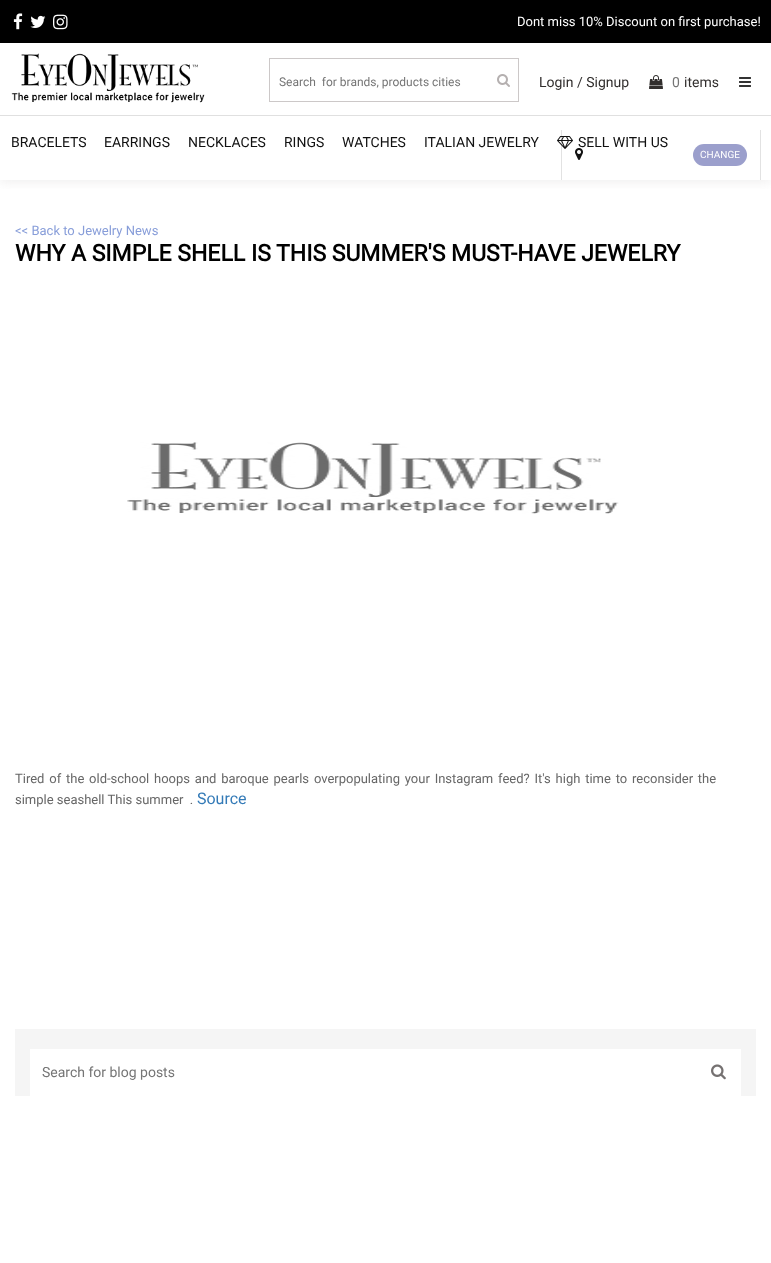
<svg xmlns="http://www.w3.org/2000/svg" xmlns:xlink="http://www.w3.org/1999/xlink" width="771" height="1263" viewBox="0 0 771 1263">
<style>
.cls-1{font:13px Roboto;fill:#ffffff}
.cls-2{font:12px Roboto;fill:#757575}
.cls-3{font:14px Roboto;fill:#312e2d}
.cls-4{font:14px Roboto;fill:#757575}
.cls-5{font:14px Roboto;fill:#111111}
.cls-6{font:10px Roboto;fill:#ffffff}
.cls-7{font:13px Roboto;fill:#879dd9}
.cls-8{font:bold 23px Roboto;fill:#000000}
.cls-9{font:13px Roboto;fill:#666666}
.cls-10{font:16px Roboto;fill:#337ab7}
</style>
<defs>
<clipPath id="clip1"><rect x="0" y="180" width="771" height="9"/></clipPath>
</defs>
<rect width="100%" height="100%" fill="#ffffff"/>
<rect fill="#000000" x="0" y="0" width="771" height="43"/>
<image xlink:href="image0.png" x="13" y="13" width="10" height="17"/>
<image xlink:href="image1.png" x="30" y="15" width="16" height="13"/>
<image xlink:href="image2.png" x="53" y="14" width="15" height="16"/>
<g clip-path="url(#clip1)">
<rect fill="#b9b7b7" fill-opacity="0.23" filter="blur(5.5px)" x="0" y="117" width="771" height="65"/>
</g>
<rect fill="#ffffff" x="0" y="111" width="771" height="4"/>
<rect fill="#e0e0e0" x="0" y="115" width="771" height="1"/>
<image xlink:href="image3.png" x="11" y="53" width="194" height="50"/>
<rect fill="none" stroke="#ccc8c8" x="269.5" y="58.5" width="249" height="43"/>
<image xlink:href="image4.png" x="497" y="74" width="13" height="13"/>
<image xlink:href="image5.png" x="649" y="75" width="14" height="14"/>
<image xlink:href="image6.png" x="739" y="77" width="12" height="10"/>
<rect fill="#e2e2e2" x="561" y="130" width="1" height="50"/>
<image xlink:href="image7.png" x="557" y="136" width="16" height="13"/>
<rect fill="#e2e2e2" x="760" y="130" width="1" height="50"/>
<image xlink:href="image8.png" x="575" y="148" width="8" height="12"/>
<rect fill="#9b9fcc" x="693" y="144" width="54" height="22" rx="11"/>
<image xlink:href="image9.png" x="127" y="442" width="492" height="72"/>
<rect fill="#f5f5f5" x="15" y="1029" width="741" height="67"/>
<rect fill="#ffffff" x="30" y="1049" width="711" height="47"/>
<image xlink:href="image10.png" x="711" y="1064" width="15" height="16"/>
<text class="cls-1" x="517" y="26">Dont miss 10% Discount on first purchase!</text>
<text class="cls-2" xml:space="preserve" x="279" y="86">Search  for brands, products cities</text>
<text class="cls-3" x="539" y="87">Login / Signup</text>
<text class="cls-4" x="672" y="87">0</text>
<text class="cls-3" x="684" y="87">items</text>
<text class="cls-5" x="11" y="147">BRACELETS</text>
<text class="cls-5" x="104" y="147">EARRINGS</text>
<text class="cls-5" x="188" y="147">NECKLACES</text>
<text class="cls-5" x="284" y="147">RINGS</text>
<text class="cls-5" x="342" y="147">WATCHES</text>
<text class="cls-5" x="424" y="147">ITALIAN JEWELRY</text>
<text class="cls-5" x="578" y="147">SELL WITH US</text>
<text class="cls-6" x="700" y="158">CHANGE</text>
<text class="cls-7" x="15" y="235">&lt;&lt; Back to Jewelry News</text>
<text class="cls-8" x="15" y="261">WHY A SIMPLE SHELL IS THIS SUMMER'S MUST-HAVE JEWELRY</text>
<text class="cls-9" xml:space="preserve"><tspan x="15" y="783" word-spacing="1.6">Tired of the old-school hoops and baroque pearls overpopulating your Instagram feed? It's high time to reconsider the</tspan><tspan x="15" y="804">simple seashell This summer  .</tspan></text>
<text class="cls-10" x="197" y="804">Source</text>
<text class="cls-4" x="42" y="1077">Search for blog posts</text>
</svg>
